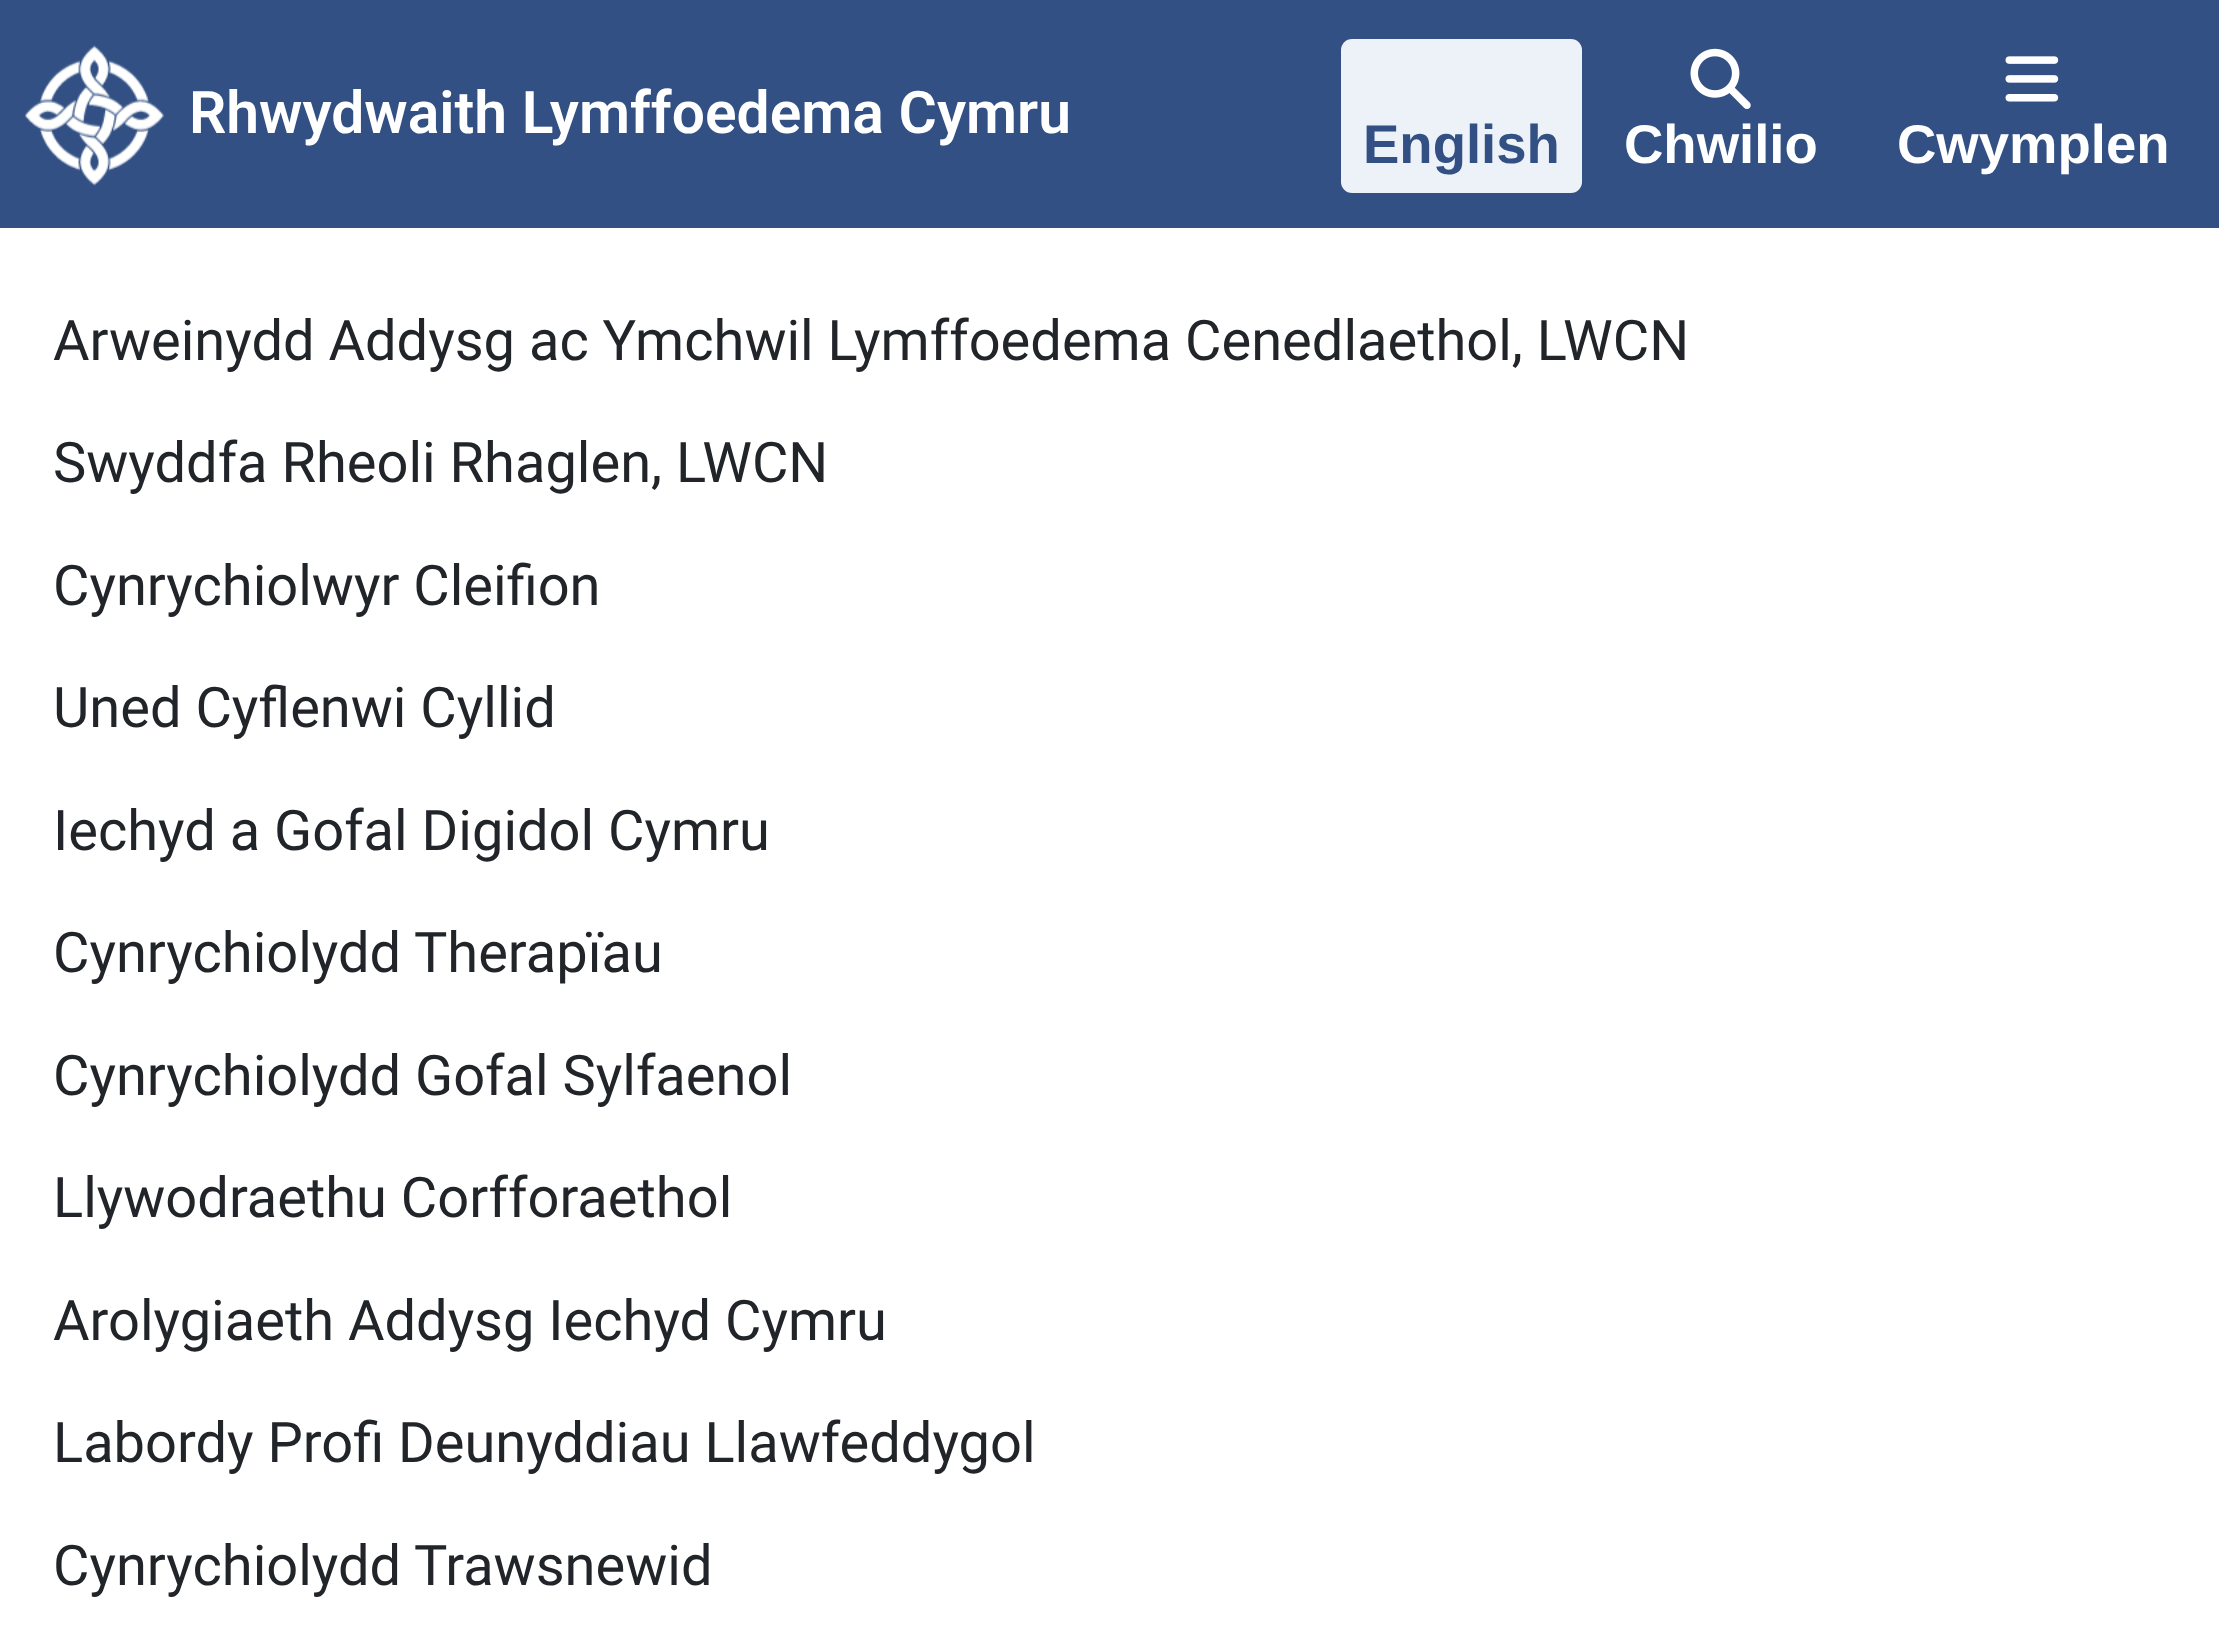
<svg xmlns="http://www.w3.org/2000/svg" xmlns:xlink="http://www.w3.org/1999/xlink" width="2219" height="1644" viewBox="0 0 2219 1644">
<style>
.cls-1{font:600 58.75px Roboto;fill:#ffffff}
.cls-2{font:bold 54.5px Liberation Sans;fill:#325083}
.cls-3{font:bold 54.5px Liberation Sans;fill:#ffffff}
.cls-4{font:56px Roboto;fill:#212529}
</style>
<rect width="100%" height="100%" fill="#ffffff"/>
<rect fill="#325083" x="0" y="0" width="2219" height="228"/>
<image xlink:href="image0.png" x="25" y="45" width="139" height="141"/>
<rect fill="#edf1f8" x="1341" y="39" width="241" height="147" rx="11"/>
<rect fill="#edf1f8" x="1341" y="98" width="241" height="95" rx="11"/>
<image xlink:href="image1.png" x="1690" y="48" width="61" height="61"/>
<image xlink:href="image2.png" x="2005" y="56" width="54" height="46"/>
<text class="cls-1" x="189" y="133">Rhwydwaith Lymffoedema Cymru</text>
<text class="cls-2" x="1363" y="163">English</text>
<text class="cls-3" x="1624" y="163">Chwilio</text>
<text class="cls-3" x="1897" y="163">Cwymplen</text>
<text class="cls-4" x="53" y="360">Arweinydd Addysg ac Ymchwil Lymffoedema Cenedlaethol, LWCN</text>
<text class="cls-4" x="53" y="482">Swyddfa Rheoli Rhaglen, LWCN</text>
<text class="cls-4" x="53" y="605">Cynrychiolwyr Cleifion</text>
<text class="cls-4" x="53" y="727">Uned Cyflenwi Cyllid</text>
<text class="cls-4" x="53" y="850">Iechyd a Gofal Digidol Cymru</text>
<text class="cls-4" x="53" y="972">Cynrychiolydd Therapïau</text>
<text class="cls-4" x="53" y="1095">Cynrychiolydd Gofal Sylfaenol</text>
<text class="cls-4" x="53" y="1217">Llywodraethu Corfforaethol</text>
<text class="cls-4" x="53" y="1340">Arolygiaeth Addysg Iechyd Cymru</text>
<text class="cls-4" x="53" y="1462">Labordy Profi Deunyddiau Llawfeddygol</text>
<text class="cls-4" x="53" y="1585">Cynrychiolydd Trawsnewid</text>
</svg>
